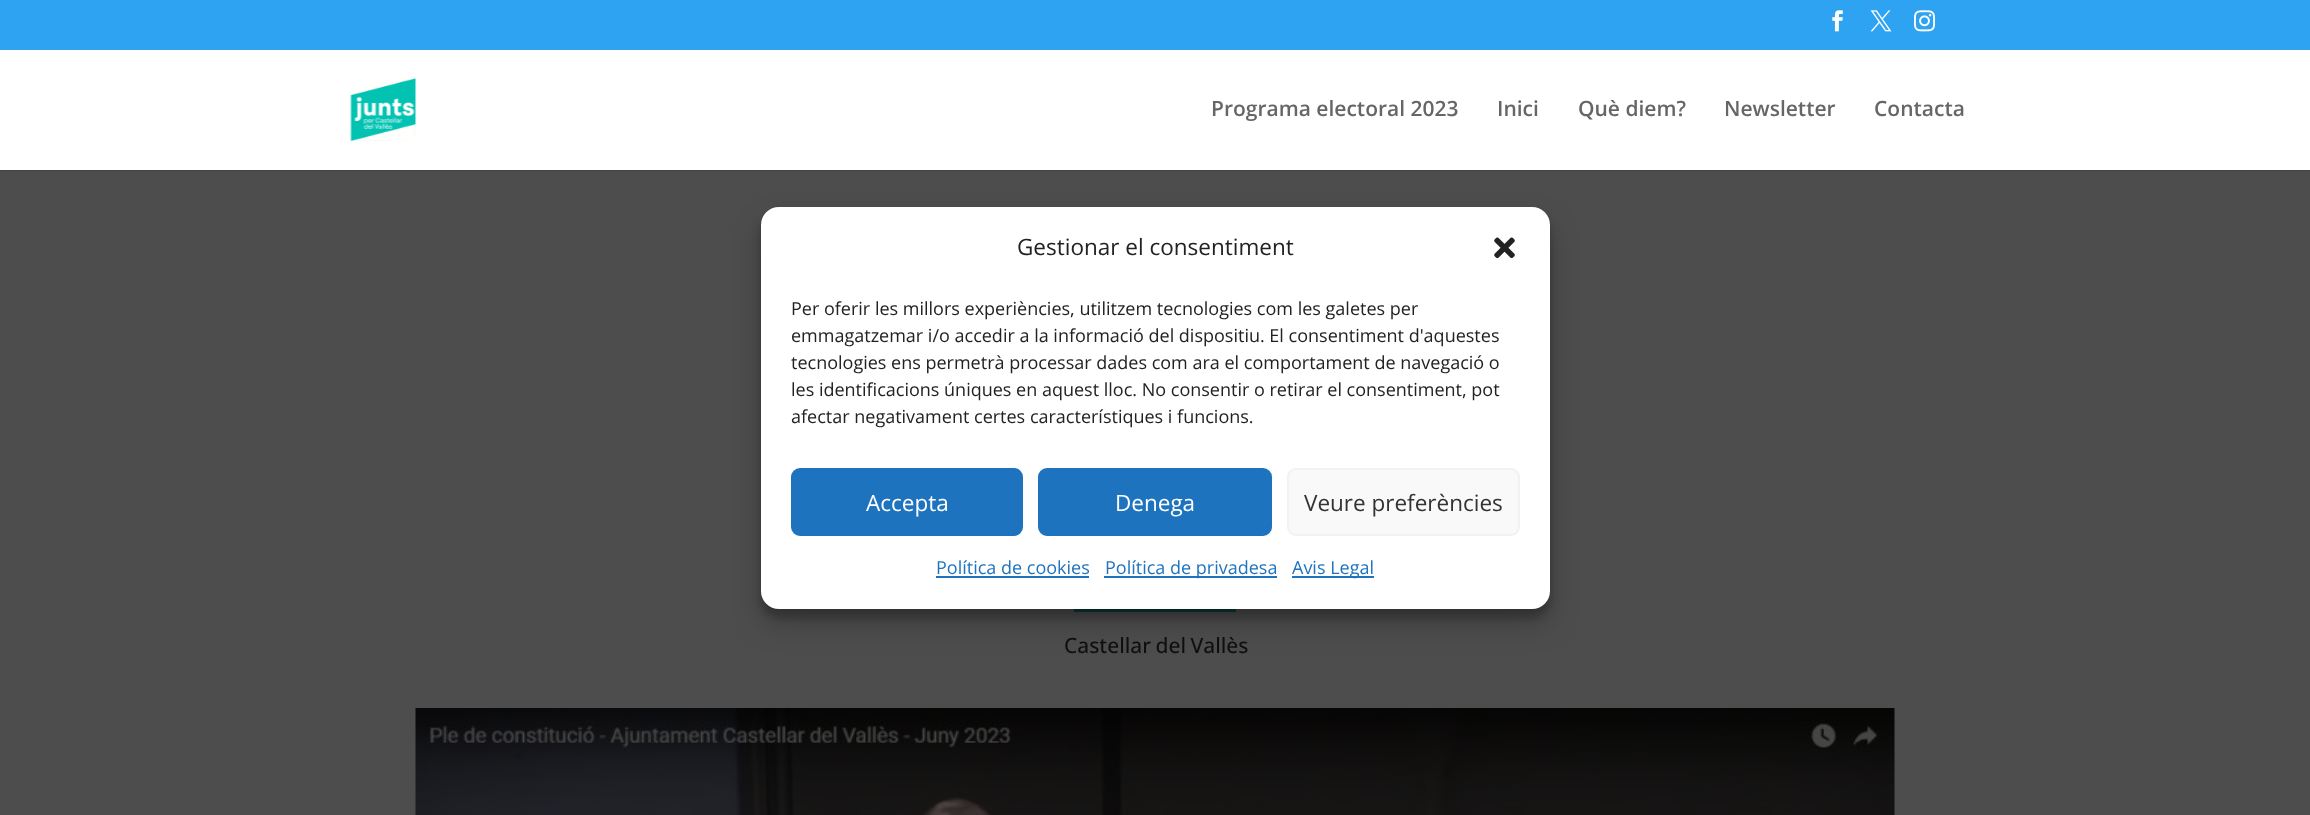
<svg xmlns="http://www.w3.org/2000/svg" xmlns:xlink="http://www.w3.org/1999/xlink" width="2310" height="815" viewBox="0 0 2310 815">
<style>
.cls-1{font:600 21px Open Sans;fill:#666666}
.cls-2{font:500 21px Open Sans;fill:#0f0f0f}
.cls-3{font:22.5px Open Sans;fill:#222222}
.cls-4{font:18px Open Sans;fill:#222222}
.cls-5{font:22.5px Open Sans;fill:#ffffff}
.cls-6{font:22.5px Open Sans;fill:#333333}
.cls-7{font:18px Open Sans;fill:#1e73be}
</style>
<rect width="100%" height="100%" fill="#4d4d4d"/>
<rect fill="#2ea3f2" x="0" y="0" width="2310" height="50"/>
<image xlink:href="image0.png" x="1832" y="10" width="11" height="22"/>
<image xlink:href="image1.png" x="1870" y="10" width="22" height="22"/>
<image xlink:href="image2.png" x="1914" y="10" width="21" height="22"/>
<rect fill="#454545" x="0" y="170" width="2310" height="1"/>
<rect fill="#ffffff" x="0" y="50" width="2310" height="120"/>
<image xlink:href="image3.png" x="350" y="76" width="66" height="65"/>
<rect fill="#0c3b33" x="1074" y="609" width="162" height="3"/>
<image xlink:href="image4.png" x="415" y="708" width="1480" height="107"/>
<rect fill="#000000" fill-opacity="0.23" filter="blur(4.5px)" x="761" y="216" width="789" height="402" rx="18"/>
<rect fill="#000000" fill-opacity="0.19" filter="blur(15px)" x="761" y="222" width="789" height="402" rx="18"/>
<rect fill="#ffffff" x="761" y="207" width="789" height="402" rx="18"/>
<image xlink:href="image5.png" x="1494" y="237" width="21" height="22"/>
<rect fill="#1e73be" stroke="#1e73be" stroke-width="2" x="792" y="469" width="230" height="66" rx="8"/>
<rect fill="#1e73be" stroke="#1e73be" stroke-width="2" x="1039" y="469" width="232" height="66" rx="8"/>
<rect fill="#f9f9f9" stroke="#f2f2f2" stroke-width="2" x="1288" y="469" width="231" height="66" rx="8"/>
<rect fill="#1e73be" x="936" y="576" width="153" height="2"/>
<rect fill="#1e73be" x="1104" y="576" width="173" height="2"/>
<rect fill="#1e73be" x="1292" y="576" width="82" height="2"/>
<text class="cls-1" x="1211" y="116">Programa electoral 2023</text>
<text class="cls-1" x="1497" y="116">Inici</text>
<text class="cls-1" x="1578" y="116">Què diem?</text>
<text class="cls-1" x="1724" y="116">Newsletter</text>
<text class="cls-1" x="1874" y="116">Contacta</text>
<text class="cls-2" x="1064" y="653" word-spacing="-1">Castellar del Vallès</text>
<text class="cls-3" x="1017" y="255">Gestionar el consentiment</text>
<text class="cls-4"><tspan x="791" y="315">Per oferir les millors experiències, utilitzem tecnologies com les galetes per</tspan><tspan x="791" y="342">emmagatzemar i/o accedir a la informació del dispositiu. El consentiment d'aquestes</tspan><tspan x="791" y="369">tecnologies ens permetrà processar dades com ara el comportament de navegació o</tspan><tspan x="791" y="396">les identificacions úniques en aquest lloc. No consentir o retirar el consentiment, pot</tspan><tspan x="791" y="423">afectar negativament certes característiques i funcions.</tspan></text>
<text class="cls-5" x="866" y="511">Accepta</text>
<text class="cls-5" x="1115" y="511">Denega</text>
<text class="cls-6" x="1304" y="511">Veure preferències</text>
<text class="cls-7" x="936" y="574">Política de cookies</text>
<text class="cls-7" x="1105" y="574">Política de privadesa</text>
<text class="cls-7" x="1292" y="574">Avis Legal</text>
</svg>
